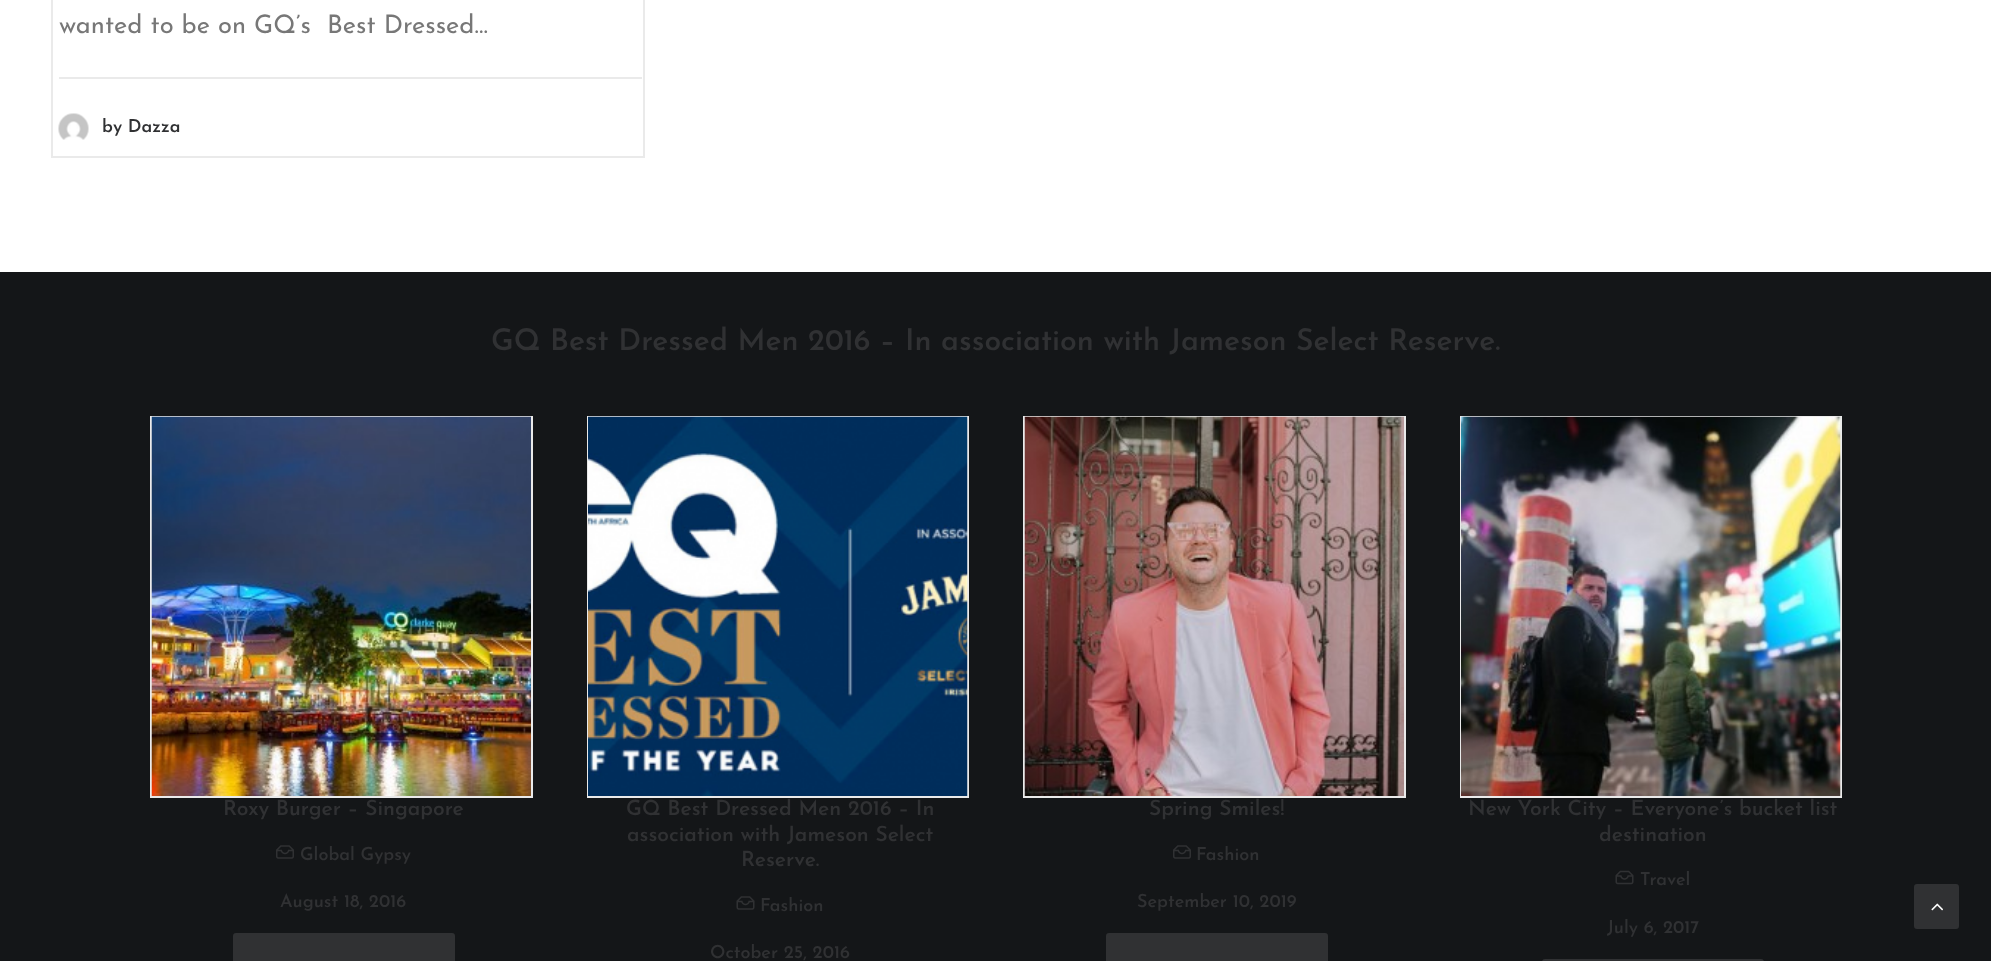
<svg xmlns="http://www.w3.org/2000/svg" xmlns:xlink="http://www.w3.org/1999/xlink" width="1991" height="961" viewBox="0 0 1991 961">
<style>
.cls-1{font:25.5px Josefin Sans;fill:#777777}
.cls-2{font:600 18px Josefin Sans;fill:#303133}
.cls-3{font:600 30px Josefin Sans;fill:#303133}
.cls-4{font:600 21px Josefin Sans;fill:#303133}
</style>
<rect width="100%" height="100%" fill="#141618"/>
<rect fill="#ffffff" x="0" y="0" width="1991" height="272"/>
<rect fill="none" stroke="#eaeaea" stroke-width="2" x="52" y="-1" width="592" height="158"/>
<rect fill="#eaeaea" x="59" y="77" width="583" height="2"/>
<image xlink:href="image0.png" x="58" y="113" width="31" height="27"/>
<rect fill="none" stroke="#eaeaea" stroke-width="2" x="151" y="417" width="381" height="380"/>
<image xlink:href="image1.png" x="151" y="416" width="380" height="380"/>
<image xlink:href="image2.png" x="276" y="845" width="18" height="14"/>
<rect fill="#303133" stroke="#303133" stroke-width="2" x="234" y="934" width="220" height="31" rx="2"/>
<rect fill="none" stroke="#eaeaea" stroke-width="2" x="588" y="417" width="380" height="380"/>
<image xlink:href="image3.png" x="588" y="416" width="380" height="380"/>
<image xlink:href="image4.png" x="736" y="896" width="19" height="14"/>
<rect fill="none" stroke="#eaeaea" stroke-width="2" x="1024" y="417" width="381" height="380"/>
<image xlink:href="image5.png" x="1024" y="416" width="380" height="380"/>
<image xlink:href="image2.png" x="1173" y="845" width="18" height="14"/>
<rect fill="#303133" stroke="#303133" stroke-width="2" x="1107" y="934" width="220" height="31" rx="2"/>
<rect fill="none" stroke="#eaeaea" stroke-width="2" x="1461" y="417" width="380" height="380"/>
<image xlink:href="image6.png" x="1461" y="416" width="380" height="380"/>
<image xlink:href="image7.png" x="1615" y="870" width="19" height="15"/>
<rect fill="none" stroke="#303133" stroke-width="2" x="1543" y="960" width="220" height="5" rx="2"/>
<rect fill="#303133" stroke="#303133" stroke-width="2" x="1915" y="885" width="43" height="43" rx="2"/>
<image xlink:href="image8.png" x="1931" y="903" width="12" height="8"/>
<text class="cls-1" xml:space="preserve" x="59" y="33">wanted to be on GQ’s  Best Dressed…</text>
<text class="cls-2" x="102" y="132">by Dazza</text>
<text class="cls-3" x="491" y="350">GQ Best Dressed Men 2016 – In association with Jameson Select Reserve.</text>
<text class="cls-4" x="223" y="815">Roxy Burger – Singapore</text>
<text class="cls-2" x="300" y="860">Global Gypsy</text>
<text class="cls-2" x="280" y="907">August 18, 2016</text>
<text class="cls-4" x="626" y="815">GQ Best Dressed Men 2016 – In</text>
<text class="cls-4" x="627" y="841">association with Jameson Select</text>
<text class="cls-4" x="741" y="866">Reserve.</text>
<text class="cls-2" x="760" y="911">Fashion</text>
<text class="cls-2" x="710" y="958">October 25, 2016</text>
<text class="cls-4" x="1149" y="815">Spring Smiles!</text>
<text class="cls-2" x="1196" y="860">Fashion</text>
<text class="cls-2" x="1137" y="907">September 10, 2019</text>
<text class="cls-4" x="1468" y="815">New York City – Everyone’s bucket list</text>
<text class="cls-4" x="1599" y="841">destination</text>
<text class="cls-2" x="1640" y="885">Travel</text>
<text class="cls-2" x="1607" y="933">July 6, 2017</text>
</svg>
